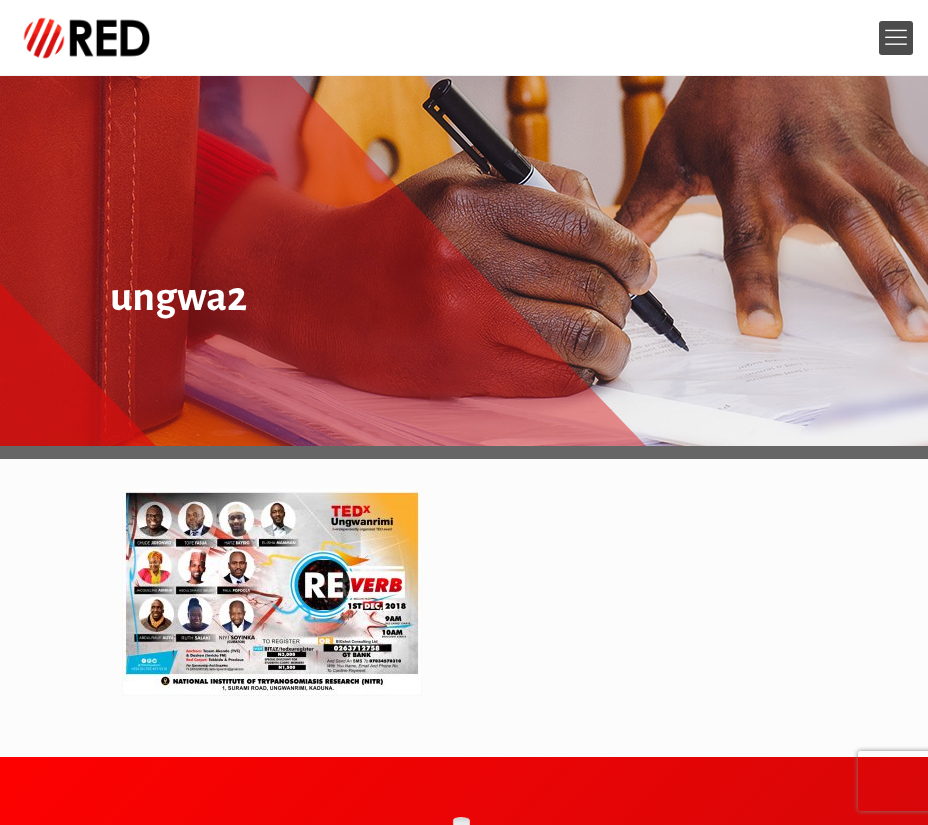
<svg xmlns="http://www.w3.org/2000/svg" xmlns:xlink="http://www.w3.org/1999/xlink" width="928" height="825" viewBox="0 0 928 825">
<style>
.cls-1{font:bold 43px Alegreya Sans;fill:#ffffff}
</style>
<defs>
<linearGradient id="g1" gradientUnits="userSpaceOnUse" x1="853" y1="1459" x2="75" y2="682"><stop offset="0" stop-color="#c20b0d"/><stop offset="1" stop-color="#fe0000"/></linearGradient>
<clipPath id="clip1"><path d="M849 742H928V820H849ZM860 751H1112C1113 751 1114 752 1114 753V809C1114 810 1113 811 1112 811H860C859 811 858 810 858 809V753C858 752 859 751 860 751Z" clip-rule="evenodd"/></clipPath>
</defs>
<rect width="100%" height="100%" fill="#fcfcfc"/>
<rect fill="#666666" x="0" y="446" width="928" height="13"/>
<image xlink:href="image0.png" x="0" y="76" width="928" height="370"/>
<rect fill="#ffffff" x="0" y="0" width="928" height="75"/>
<rect fill="#f2f2f2" x="0" y="75" width="928" height="1"/>
<image xlink:href="image1.png" x="23" y="17" width="127" height="42"/>
<rect fill="#4c4c4c" x="879" y="21" width="34" height="34" rx="3"/>
<image xlink:href="image2.png" x="885" y="29" width="22" height="16"/>
<image xlink:href="image3.png" x="122" y="489" width="300" height="207"/>
<rect fill="url(#g1)" x="0" y="757" width="928" height="68"/>
<image xlink:href="image4.png" x="452" y="817" width="19" height="8"/>
<g clip-path="url(#clip1)">
<rect fill="#808080" filter="blur(2.5px)" x="858" y="751" width="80" height="60" rx="2"/>
</g>
<text class="cls-1" x="110" y="310">ungwa2</text>
</svg>
